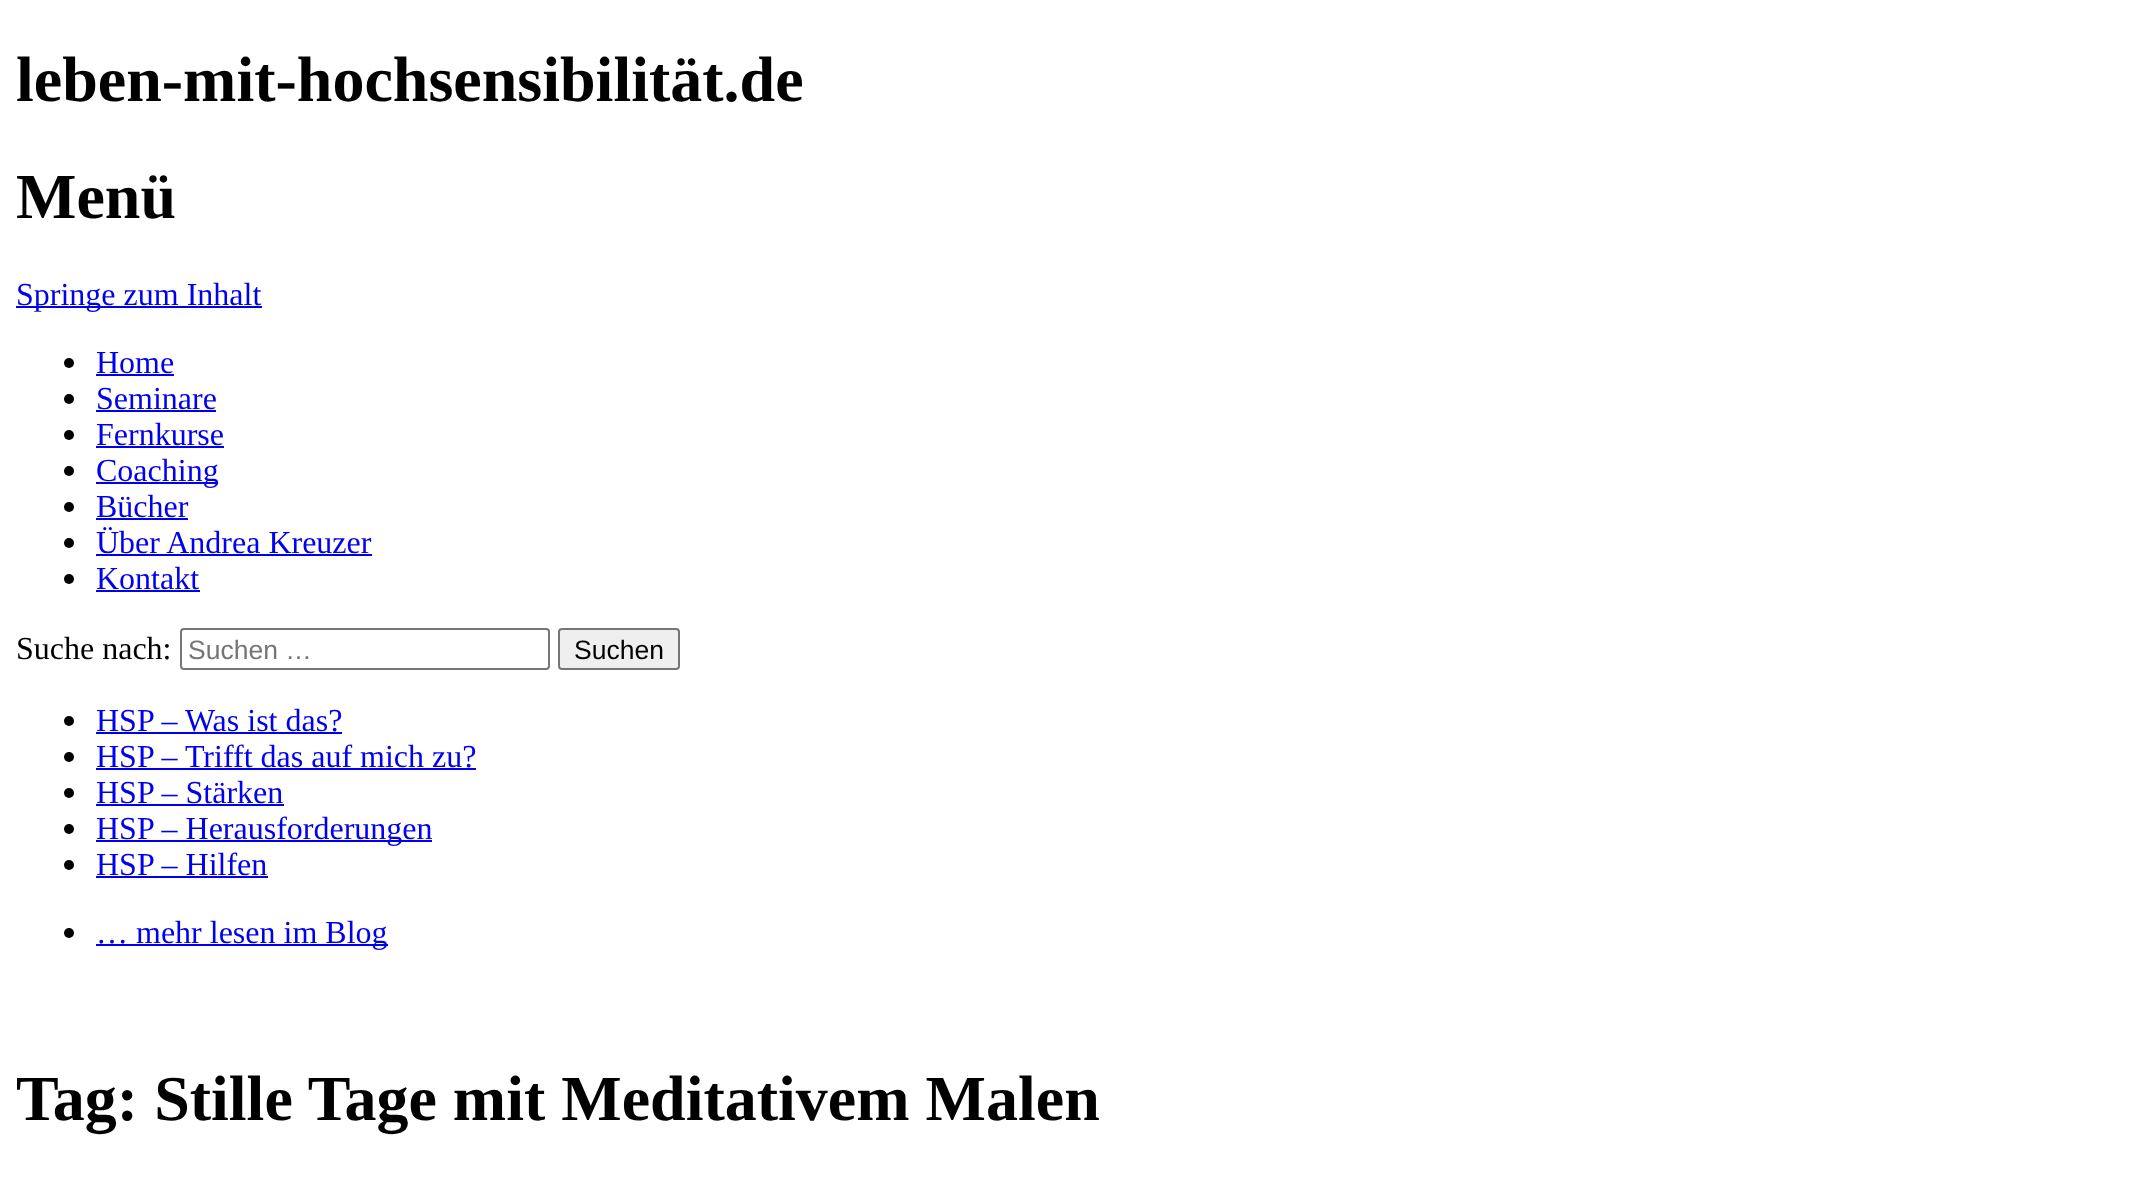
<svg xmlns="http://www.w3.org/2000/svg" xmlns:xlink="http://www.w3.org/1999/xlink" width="2137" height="1188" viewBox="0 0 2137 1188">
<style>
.cls-1{font:bold 64px Liberation Serif;fill:#000000}
.cls-2{font:32px Liberation Serif;fill:#0000ee}
.cls-3{font:32px Liberation Serif;fill:#000000}
.cls-4{font:26.5px Liberation Sans;fill:#757575}
.cls-5{font:26.5px Liberation Sans;fill:#000000}
</style>
<rect width="100%" height="100%" fill="#ffffff"/>
<rect fill="#0000ee" x="16" y="306" width="246" height="2"/>
<circle fill="#000000" cx="69" cy="363" r="5"/>
<rect fill="#0000ee" x="96" y="374" width="78" height="2"/>
<circle fill="#000000" cx="69" cy="399" r="5"/>
<rect fill="#0000ee" x="96" y="410" width="120" height="2"/>
<circle fill="#000000" cx="69" cy="435" r="5"/>
<rect fill="#0000ee" x="96" y="446" width="128" height="2"/>
<circle fill="#000000" cx="69" cy="471" r="5"/>
<rect fill="#0000ee" x="96" y="482" width="122" height="2"/>
<circle fill="#000000" cx="69" cy="507" r="5"/>
<rect fill="#0000ee" x="96" y="518" width="92" height="2"/>
<circle fill="#000000" cx="69" cy="543" r="5"/>
<rect fill="#0000ee" x="96" y="554" width="276" height="2"/>
<circle fill="#000000" cx="69" cy="579" r="5"/>
<rect fill="#0000ee" x="96" y="590" width="104" height="2"/>
<rect fill="none" stroke="#767676" stroke-width="2" x="181" y="629" width="368" height="40" rx="3"/>
<rect fill="#efefef" stroke="#767676" stroke-width="2" x="559" y="629" width="120" height="40" rx="3"/>
<circle fill="#000000" cx="69" cy="721" r="5"/>
<rect fill="#0000ee" x="96" y="732" width="246" height="2"/>
<circle fill="#000000" cx="69" cy="757" r="5"/>
<rect fill="#0000ee" x="96" y="768" width="380" height="2"/>
<circle fill="#000000" cx="69" cy="793" r="5"/>
<rect fill="#0000ee" x="96" y="804" width="188" height="2"/>
<circle fill="#000000" cx="69" cy="829" r="5"/>
<rect fill="#0000ee" x="96" y="840" width="336" height="2"/>
<circle fill="#000000" cx="69" cy="865" r="5"/>
<rect fill="#0000ee" x="96" y="876" width="172" height="2"/>
<circle fill="#000000" cx="69" cy="933" r="5"/>
<rect fill="#0000ee" x="96" y="944" width="292" height="2"/>
<text class="cls-1"><tspan x="16" y="101">leben-mit-hochsensibilität.de</tspan><tspan x="16" y="218">Menü</tspan></text>
<text class="cls-2" x="16" y="305">Springe zum Inhalt</text>
<text class="cls-2"><tspan x="96" y="373">Home</tspan><tspan x="96" y="409">Seminare</tspan><tspan x="96" y="445">Fernkurse</tspan><tspan x="96" y="481">Coaching</tspan><tspan x="96" y="517">Bücher</tspan><tspan x="96" y="553">Über Andrea Kreuzer</tspan><tspan x="96" y="589">Kontakt</tspan></text>
<text class="cls-3" x="16" y="659">Suche nach:</text>
<text class="cls-4" x="188" y="659">Suchen …</text>
<text class="cls-5" x="574" y="659">Suchen</text>
<text class="cls-2"><tspan x="96" y="731">HSP – Was ist das?</tspan><tspan x="96" y="767">HSP – Trifft das auf mich zu?</tspan><tspan x="96" y="803">HSP – Stärken</tspan><tspan x="96" y="839">HSP – Herausforderungen</tspan><tspan x="96" y="875">HSP – Hilfen</tspan></text>
<text class="cls-2" x="96" y="943">… mehr lesen im Blog</text>
<text class="cls-1" x="16" y="1120">Tag: Stille Tage mit Meditativem Malen</text>
</svg>
